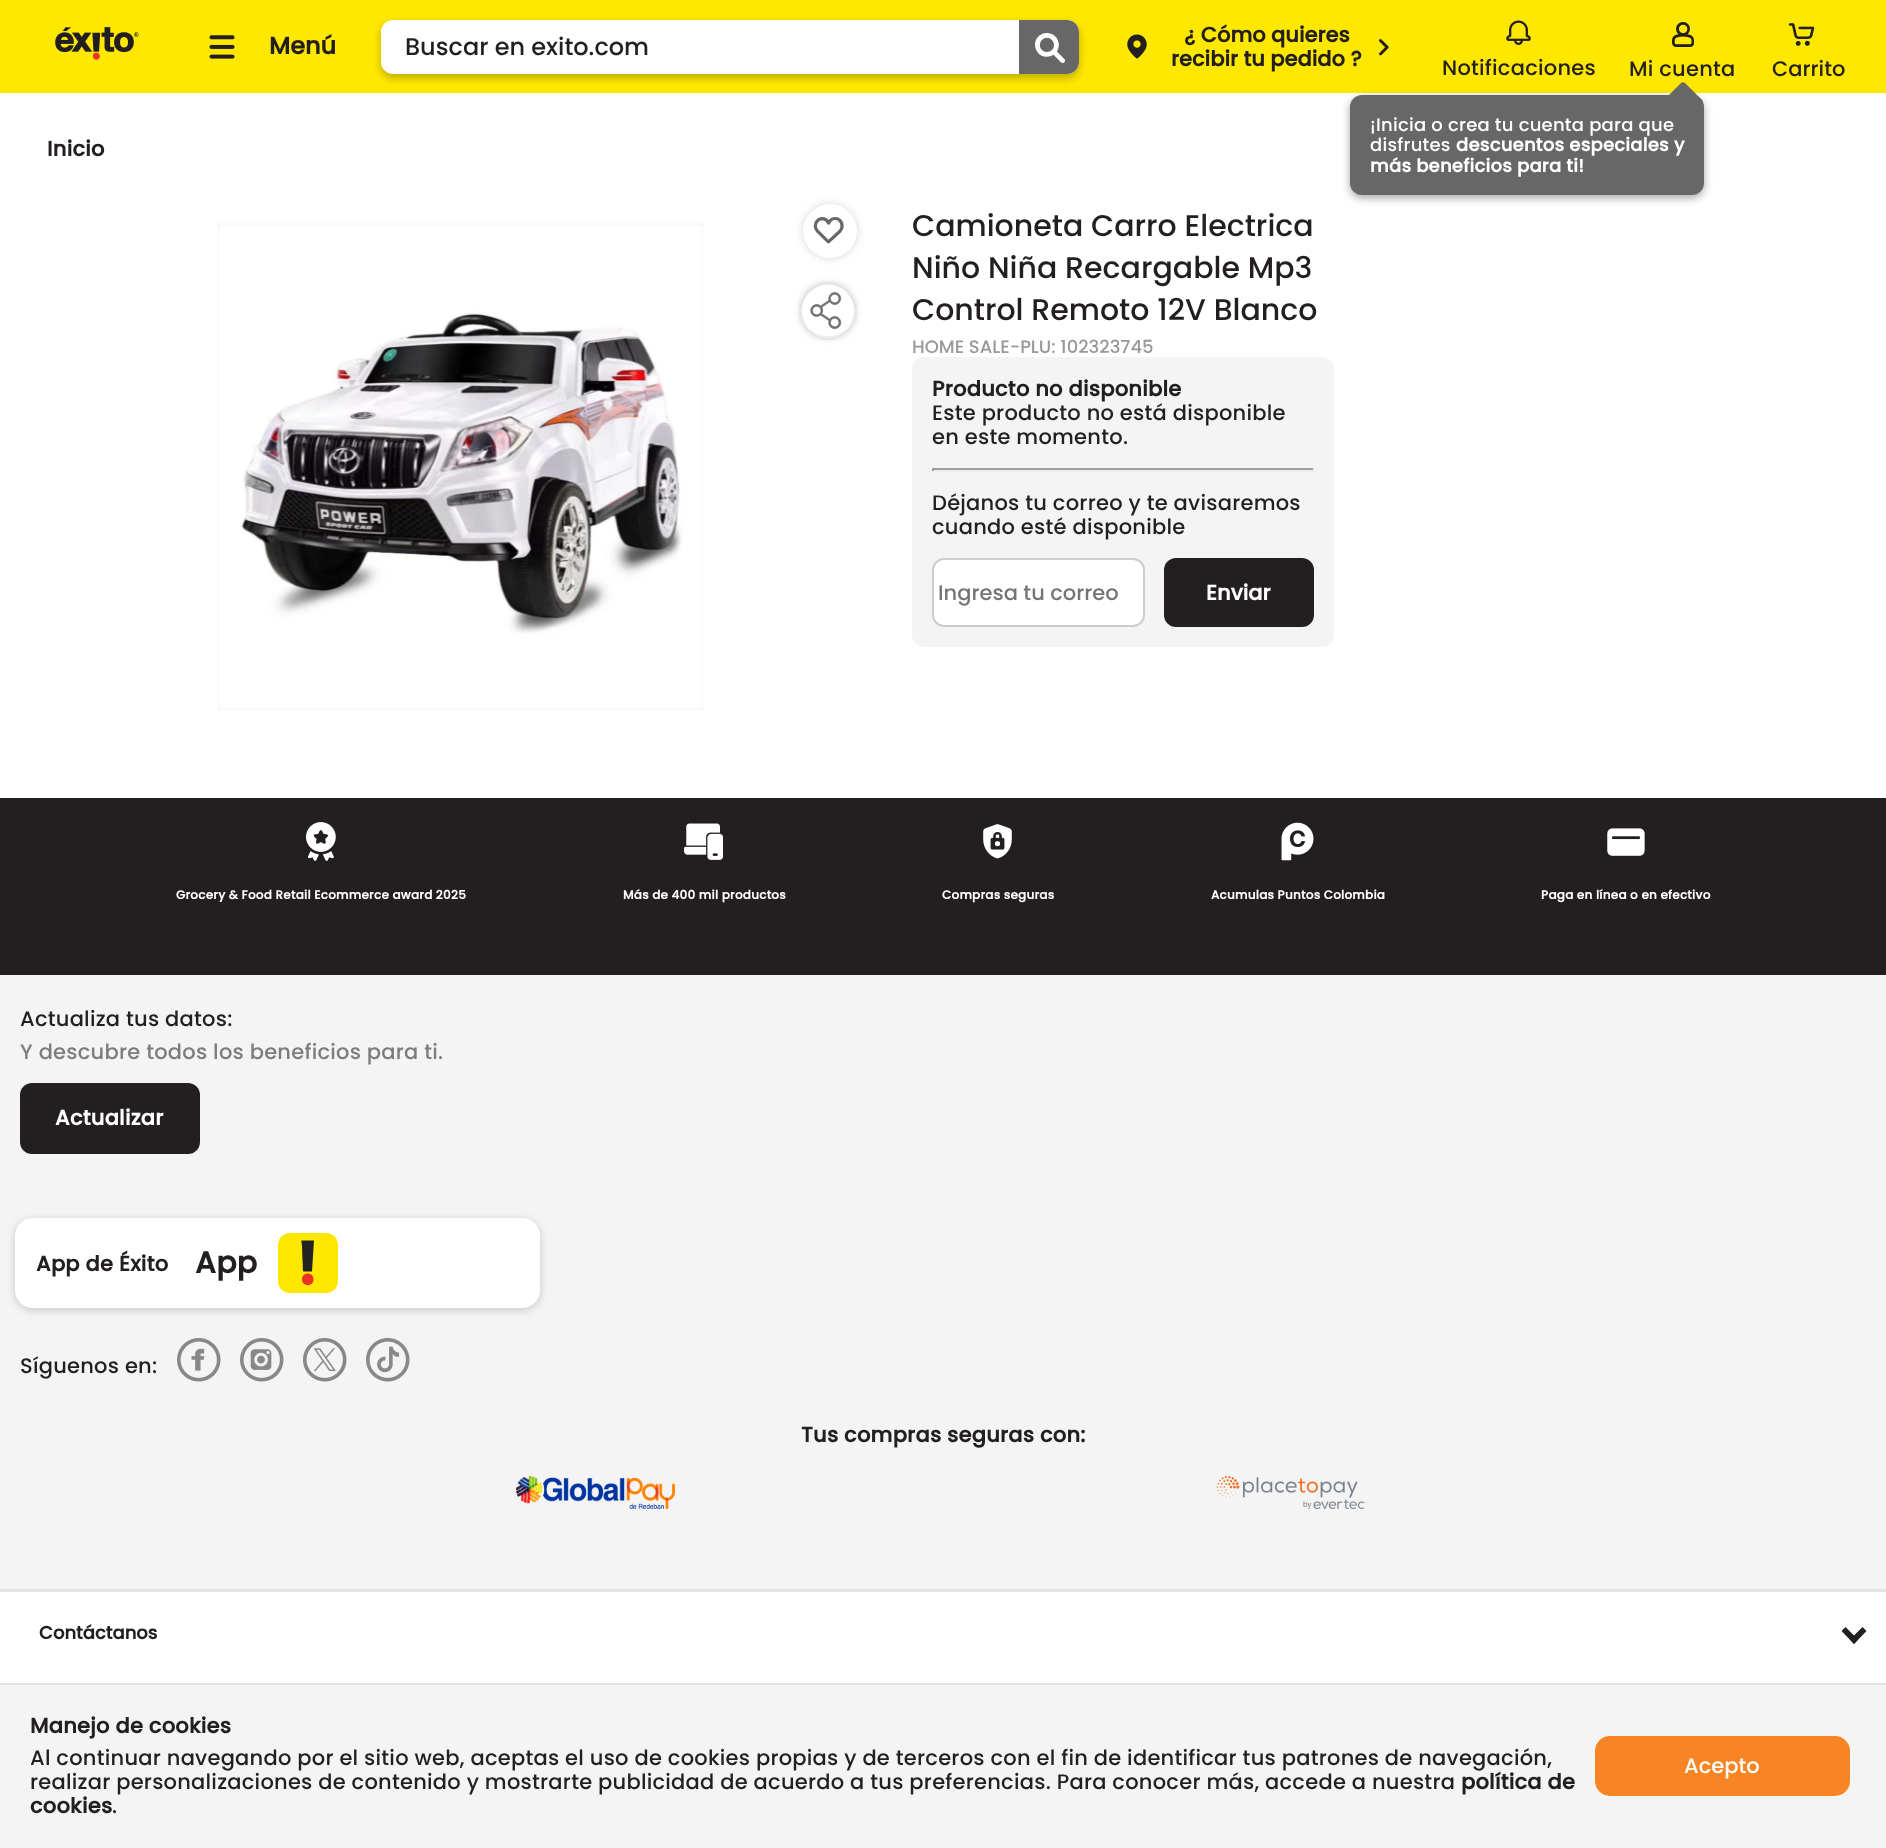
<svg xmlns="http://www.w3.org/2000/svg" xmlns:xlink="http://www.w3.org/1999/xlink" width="1886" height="1848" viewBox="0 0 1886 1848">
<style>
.cls-1{font:bold 24px Poppins;fill:#231f20}
.cls-2{font:500 24px Poppins;fill:#231f20}
.cls-3{font:bold 21px Poppins;fill:#231f20}
.cls-4{font:500 21px Poppins;letter-spacing:0.24px;fill:#231f20}
.cls-5{font:500 18px Poppins;letter-spacing:0.24px;fill:#ffffff}
.cls-6{font:bold 18px Poppins;letter-spacing:0.24px;fill:#ffffff}
.cls-7{font:500 21px Poppins;fill:#231f20}
.cls-8{font:bold 21px Poppins;letter-spacing:0.24px;fill:#231f20}
.cls-9{font:500 30px Poppins;fill:#231f20}
.cls-10{font:500 18px Poppins;fill:#999999}
.cls-11{font:500 21px Poppins;fill:#757575}
.cls-12{font:bold 21px Poppins;fill:#ffffff}
.cls-13{font:bold 12px Poppins;letter-spacing:0.24px;fill:#ffffff}
.cls-14{font:500 21px Poppins;letter-spacing:0.24px;fill:#7d7d7d}
.cls-15{font:bold 21px Poppins;letter-spacing:0.24px;fill:#ffffff}
.cls-16{font:bold 30px Poppins;letter-spacing:0.24px;fill:#231f20}
.cls-17{font:bold 18px Poppins;fill:#231f20}
.cls-18{font:500 21px Poppins;fill:#ffffff}
</style>
<defs>
<clipPath id="clip1"><path d="M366 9H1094V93H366ZM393 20H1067C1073.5 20 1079 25.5 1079 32V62C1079 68.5 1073.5 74 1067 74H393C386.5 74 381 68.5 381 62V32C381 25.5 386.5 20 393 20Z" clip-rule="evenodd"/></clipPath>
</defs>
<rect width="100%" height="100%" fill="#ffffff"/>
<rect fill="#ffe800" x="0" y="0" width="1886" height="93"/>
<image xlink:href="image0.png" x="55" y="27" width="84" height="33"/>
<image xlink:href="image1.png" x="209" y="35" width="26" height="24"/>
<rect fill="#ffffff" x="381" y="20" width="698" height="54" rx="12"/>
<g clip-path="url(#clip1)">
<rect fill="#000000" fill-opacity="0.26" filter="blur(4.5px)" x="381" y="24" width="698" height="54" rx="12"/>
</g>
<path fill="#676767" d="M1019 20H1067C1073.5 20 1079 25.5 1079 32V62C1079 68.5 1073.5 74 1067 74H1019Z"/>
<image xlink:href="image2.png" x="1035" y="33" width="30" height="30"/>
<image xlink:href="image3.png" x="1127" y="34" width="20" height="25"/>
<image xlink:href="image4.png" x="1379" y="39" width="10" height="17"/>
<image xlink:href="image5.png" x="1506" y="20" width="25" height="25"/>
<image xlink:href="image6.png" x="1672" y="22" width="22" height="25"/>
<rect fill="#000000" fill-opacity="0.34" filter="blur(4.5px)" x="1350" y="98" width="354" height="100" rx="12"/>
<rect fill="#676767" x="1350" y="95" width="354" height="100" rx="12"/>
<image xlink:href="image7.png" x="1788" y="23" width="27" height="23"/>
<image xlink:href="image8.png" x="217" y="223" width="487" height="487"/>
<rect fill="#000000" fill-opacity="0.16" filter="blur(4.5px)" x="803" y="204" width="54" height="54" rx="27"/>
<circle fill="#ffffff" cx="830" cy="231" r="27"/>
<image xlink:href="image9.png" x="813" y="217" width="31" height="27"/>
<rect fill="#000000" fill-opacity="0.16" filter="blur(4.5px)" x="801" y="284" width="54" height="54" rx="27"/>
<circle fill="#ffffff" cx="828" cy="311" r="27"/>
<image xlink:href="image10.png" x="798" y="281" width="60" height="59"/>
<rect fill="#f4f4f4" x="912" y="357" width="422" height="290" rx="12"/>
<rect fill="#9f9f9f" x="932" y="468" width="382" height="2"/>
<rect fill="#eeeeee" x="1313" y="468" width="2" height="3"/>
<rect fill="#eeeeee" x="932" y="470" width="382" height="2"/>
<rect fill="#9f9f9f" x="932" y="468" width="2" height="3"/>
<rect fill="#ffffff" stroke="#cccccc" stroke-width="2" x="933" y="559" width="211" height="67" rx="11"/>
<rect fill="#231f20" x="1164" y="558" width="150" height="69" rx="12"/>
<rect fill="#231f20" x="0" y="798" width="1886" height="177"/>
<image xlink:href="image11.png" x="306" y="822" width="30" height="39"/>
<image xlink:href="image12.png" x="684" y="823" width="39" height="37"/>
<image xlink:href="image13.png" x="983" y="824" width="29" height="35"/>
<image xlink:href="image14.png" x="1281" y="822" width="33" height="39"/>
<image xlink:href="image15.png" x="1607" y="828" width="38" height="28"/>
<rect fill="#f4f4f4" x="0" y="975" width="1886" height="614"/>
<rect fill="#231f20" x="20" y="1083" width="180" height="71" rx="12"/>
<rect fill="#2e2e2e" fill-opacity="0.22" filter="blur(4.5px)" x="15" y="1220" width="525" height="90" rx="18"/>
<rect fill="#ffffff" x="15" y="1218" width="525" height="90" rx="18"/>
<rect fill="#ffe800" x="278" y="1233" width="60" height="60" rx="12"/>
<path fill="#ee3124" d="M313.5 1279.5C313.5 1271.5 302 1271.5 302 1279.5C302 1287 313.5 1287 313.5 1279.5"/>
<path fill="#222222" d="M303.5 1271.5C302.5 1271.5 303 1264 302.5 1261L302 1246C301.5 1240.5 300 1240.5 304 1240.5H313.5H314L312 1271.5Z"/>
<image xlink:href="image16.png" x="177" y="1338" width="44" height="44"/>
<image xlink:href="image17.png" x="240" y="1338" width="44" height="44"/>
<image xlink:href="image18.png" x="303" y="1338" width="44" height="44"/>
<image xlink:href="image19.png" x="366" y="1338" width="44" height="44"/>
<image xlink:href="image20.png" x="516" y="1476" width="159" height="33"/>
<image xlink:href="image21.png" x="1216" y="1476" width="151" height="33"/>
<rect fill="#e3e3e3" x="0" y="1589" width="1886" height="3"/>
<path fill="#231f20" d="M1854 1644L1841.5 1631L1845.5 1627L1858 1639.5Z"/>
<path fill="#231f20" d="M1854 1644L1850 1639.5L1862.5 1627L1866.5 1631Z"/>
<rect fill="#f4f4f4" x="0" y="1685" width="1886" height="163"/>
<rect fill="#e3e3e3" x="0" y="1683" width="1886" height="2"/>
<rect fill="#f78524" x="1595" y="1736" width="255" height="60" rx="15"/>
<text class="cls-1" x="269" y="54">Menú</text>
<text class="cls-2" x="405" y="55">Buscar en exito.com</text>
<text class="cls-3" x="1184" y="42">¿ Cómo quieres</text>
<text class="cls-3" x="1171" y="66">recibir tu pedido ?</text>
<text class="cls-4" x="1442" y="75">Notificaciones</text>
<text class="cls-4" x="1629" y="76">Mi cuenta</text>
<text class="cls-5" x="1370" y="131">¡Inicia o crea tu cuenta para que</text>
<path fill="#676767" d="M1685 83L1702 100C1703 101 1703 103 1702 104L1685 121C1684 122 1682 122 1681 121L1664 104C1662 103 1662 101 1664 100L1681 83C1682 82 1684 82 1685 83Z"/>
<text class="cls-5" x="1370" y="151">disfrutes</text>
<text class="cls-6" x="1456" y="151">descuentos especiales y</text>
<text class="cls-6" x="1370" y="172">más beneficios para ti!</text>
<text class="cls-7" x="1772" y="76">Carrito</text>
<text class="cls-8" x="47" y="156">Inicio</text>
<text class="cls-9"><tspan x="912" y="236">Camioneta Carro Electrica</tspan><tspan x="912" y="278">Niño Niña Recargable Mp3</tspan><tspan x="912" y="320">Control Remoto 12V Blanco</tspan></text>
<text class="cls-10" x="912" y="353">HOME SALE-PLU: 102323745</text>
<text class="cls-8" x="932" y="396">Producto no disponible</text>
<text class="cls-4"><tspan x="932" y="420">Este producto no está disponible</tspan><tspan x="932" y="444">en este momento.</tspan></text>
<text class="cls-4"><tspan x="932" y="510">Déjanos tu correo y te avisaremos</tspan><tspan x="932" y="534">cuando esté disponible</tspan></text>
<text class="cls-11" x="938" y="600">Ingresa tu correo</text>
<text class="cls-12" x="1206" y="600">Enviar</text>
<text class="cls-13" x="176" y="899">Grocery &amp; Food Retail Ecommerce award 2025</text>
<text class="cls-13" x="623" y="899">Más de 400 mil productos</text>
<text class="cls-13" x="942" y="899">Compras seguras</text>
<text class="cls-13" x="1211" y="899">Acumulas Puntos Colombia</text>
<text class="cls-13" x="1541" y="899">Paga en línea o en efectivo</text>
<text class="cls-4" x="20" y="1026">Actualiza tus datos:</text>
<text class="cls-14" x="20" y="1059">Y descubre todos los beneficios para ti.</text>
<text class="cls-15" x="55" y="1125">Actualizar</text>
<text class="cls-8" x="36" y="1271">App de Éxito</text>
<text class="cls-16" x="195" y="1273">App</text>
<text class="cls-4" x="20" y="1373">Síguenos en:</text>
<text class="cls-8" x="801" y="1442">Tus compras seguras con:</text>
<text class="cls-17" x="39" y="1639">Contáctanos</text>
<text class="cls-8" x="30" y="1733">Manejo de cookies</text>
<text class="cls-4"><tspan x="30" y="1765">Al continuar navegando por el sitio web, aceptas el uso de cookies propias y de terceros con el fin de identificar tus patrones de navegación,</tspan><tspan x="30" y="1789">realizar personalizaciones de contenido y mostrarte publicidad de acuerdo a tus preferencias. Para conocer más, accede a nuestra</tspan></text>
<text class="cls-8" x="1461" y="1789">política de</text>
<text class="cls-8" x="30" y="1813">cookies</text>
<text class="cls-4" x="112" y="1813">.</text>
<text class="cls-18" x="1684" y="1773">Acepto</text>
</svg>
